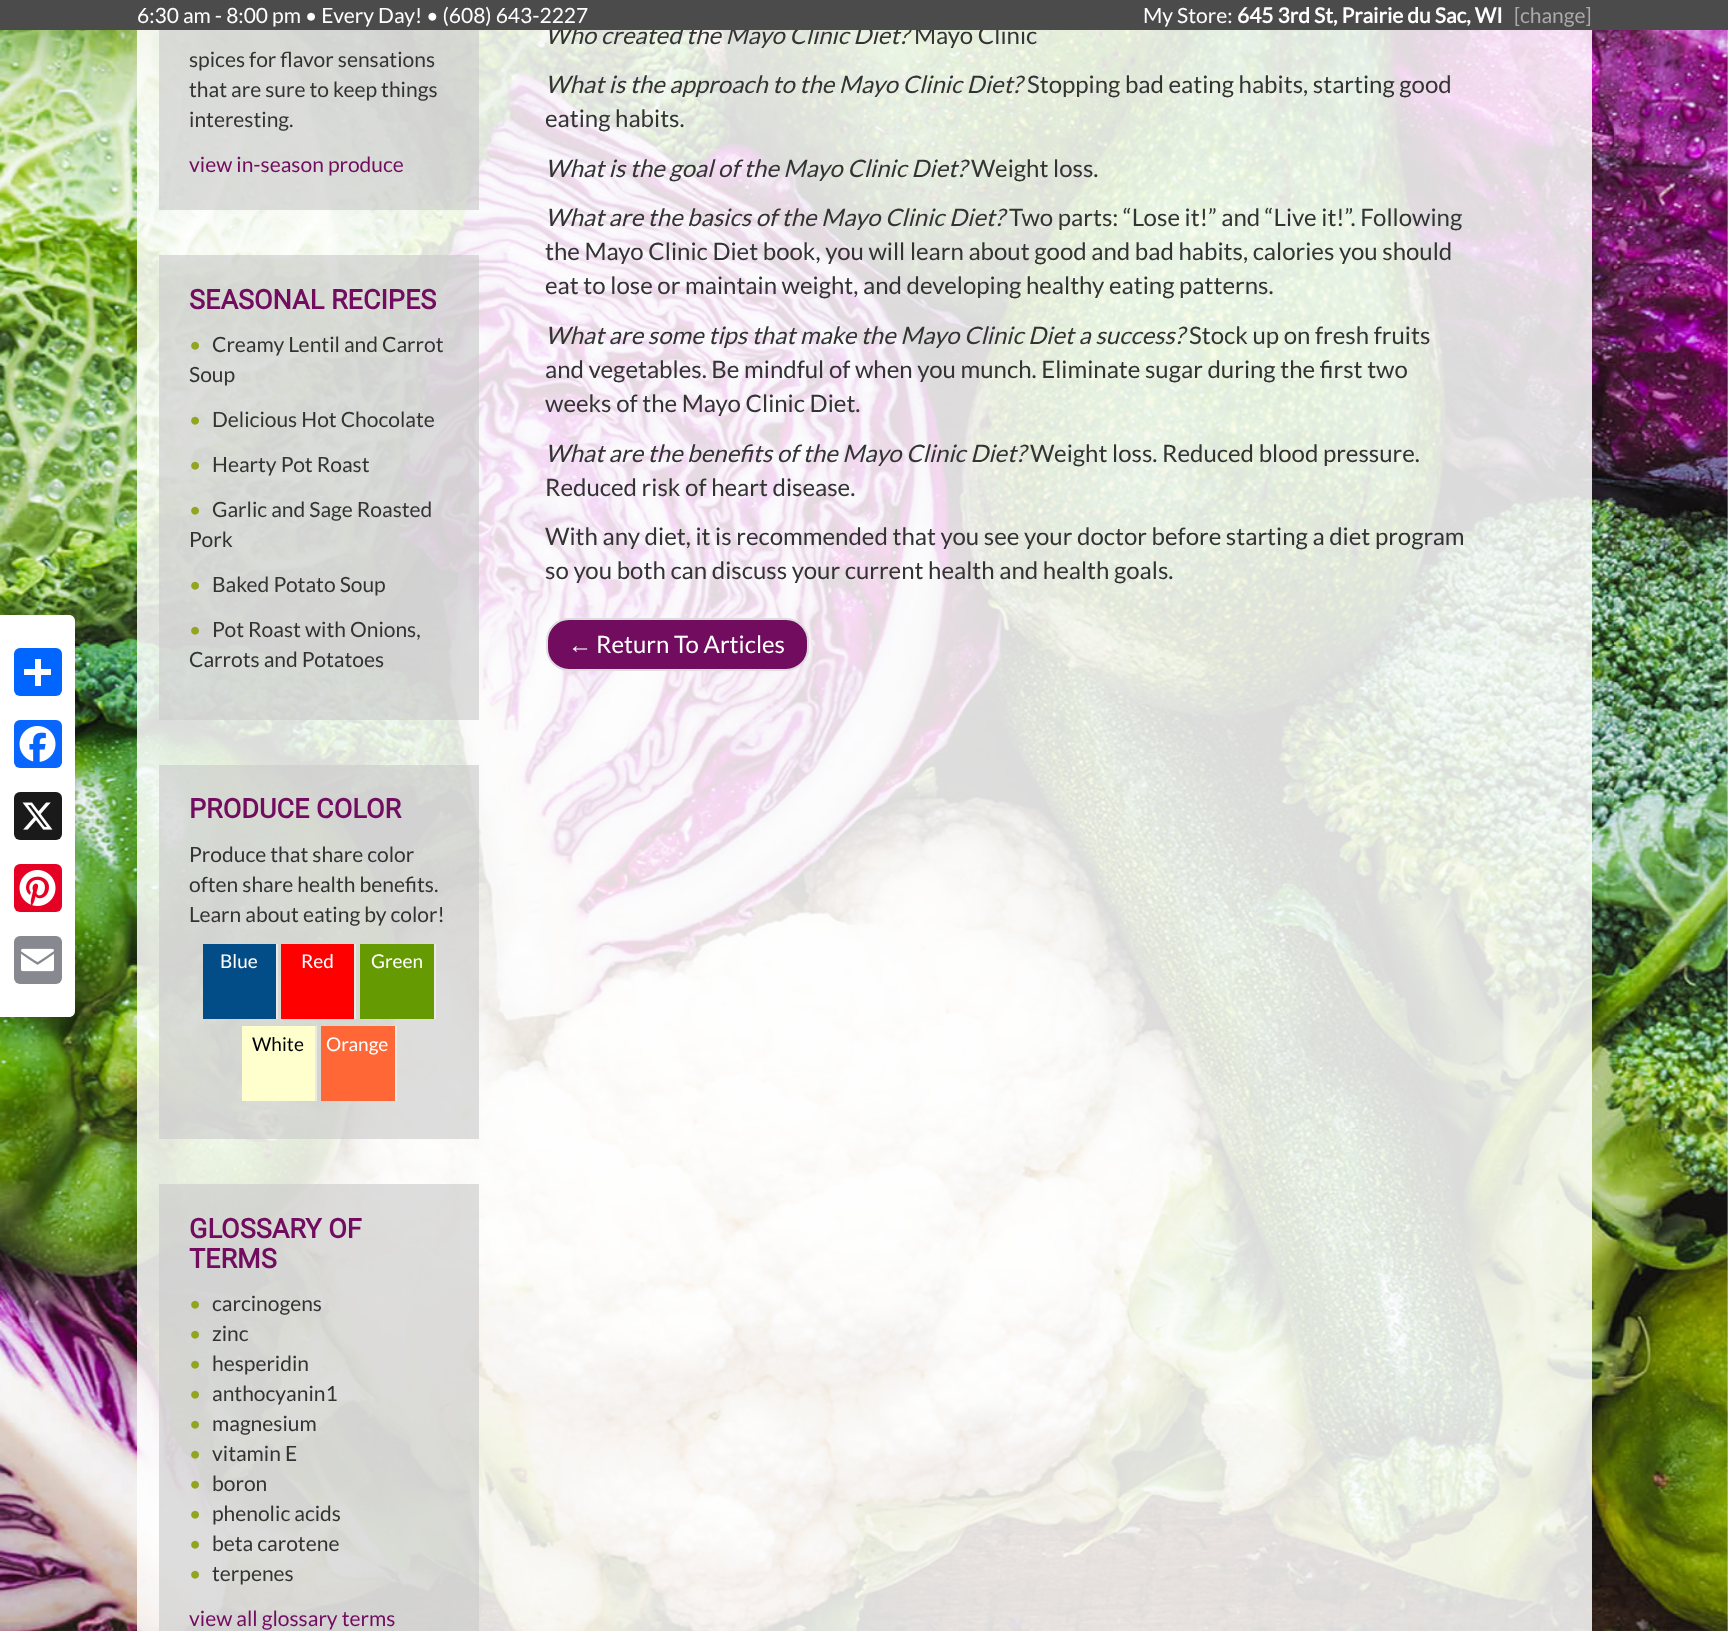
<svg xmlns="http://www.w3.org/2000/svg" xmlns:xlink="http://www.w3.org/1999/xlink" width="1728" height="1631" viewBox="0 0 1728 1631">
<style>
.cls-1{font:21px Lato;fill:#333333}
.cls-2{font:21px Lato;fill:#710c5f}
.cls-3{font:bold 27px Roboto;fill:#710c5f}
.cls-4{font:21px Lato;fill:#93a420}
.cls-5{font:19px Lato;fill:#ffffff}
.cls-6{font:19px Lato;fill:#000000}
.cls-7{font:italic 24px Lato;fill:#333333}
.cls-8{font:24px Lato;fill:#333333}
.cls-9{font:21px Lato;fill:#aaaaaa}
.cls-10{font:bold 21px Lato;fill:#ffffff}
.cls-11{font:21px Lato;fill:#ffffff}
.cls-12{font:24px Liberation Sans;fill:#ffffff}
.cls-13{font:24px Lato;fill:#ffffff}
</style>
<rect width="100%" height="100%" fill="#ffffff"/>
<image xlink:href="image0.png" x="0" y="30" width="1728" height="1601"/>
<rect fill="#000000" fill-opacity="0.1" filter="blur(4px)" x="0" y="618" width="75" height="402" rx="6"/>
<path fill="#ffffff" d="M0 615H69C72.5 615 75 617.5 75 621V1011C75 1014.5 72.5 1017 69 1017H0Z"/>
<rect fill="#0166ff" x="14" y="648" width="48" height="48" rx="6"/>
<rect fill="#ffffff" x="35" y="659" width="6" height="27"/>
<rect fill="#ffffff" x="24" y="669" width="27" height="6"/>
<rect fill="#0866ff" x="14" y="720" width="48" height="48" rx="6"/>
<image xlink:href="image1.png" x="19" y="726" width="37" height="36"/>
<rect fill="#1a1a1a" x="14" y="792" width="48" height="48" rx="6"/>
<image xlink:href="image2.png" x="22" y="802" width="31" height="28"/>
<rect fill="#e60023" x="14" y="864" width="48" height="48" rx="6"/>
<image xlink:href="image3.png" x="19" y="870" width="37" height="36"/>
<rect fill="#888990" x="14" y="936" width="48" height="48" rx="6"/>
<image xlink:href="image4.png" x="21" y="948" width="33" height="24"/>
<rect fill="#ffffff" fill-opacity="0.85" x="137" y="30" width="1455" height="1601"/>
<rect fill="#cccccc" fill-opacity="0.65" x="159" y="30" width="320" height="180"/>
<rect fill="#cccccc" fill-opacity="0.65" x="159" y="255" width="320" height="465"/>
<rect fill="#cccccc" fill-opacity="0.65" x="159" y="765" width="320" height="374"/>
<rect fill="#024d87" x="203" y="944" width="73" height="75"/>
<rect fill="#edeae5" x="276" y="944" width="2" height="75"/>
<rect fill="#ff0000" x="281" y="944" width="73" height="75"/>
<rect fill="#edeae5" x="354" y="944" width="2" height="75"/>
<rect fill="#659a02" x="360" y="944" width="74" height="75"/>
<rect fill="#edeae5" x="434" y="944" width="2" height="75"/>
<rect fill="#ffffcd" x="242" y="1026" width="73" height="75"/>
<rect fill="#edeae5" x="315" y="1026" width="2" height="75"/>
<rect fill="#ff6736" x="321" y="1026" width="74" height="75"/>
<rect fill="#edeae5" x="395" y="1026" width="2" height="75"/>
<rect fill="#cccccc" fill-opacity="0.65" x="159" y="1184" width="320" height="447"/>
<rect fill="#710c5f" stroke="#dddddd" stroke-width="2" x="547" y="619" width="261" height="51" rx="22"/>
<text class="cls-1"><tspan x="189" y="67">spices for flavor sensations</tspan><tspan x="189" y="97">that are sure to keep things</tspan><tspan x="189" y="127">interesting.</tspan></text>
<text class="cls-2" x="189" y="172">view in-season produce</text>
<text class="cls-3" x="189" y="309">SEASONAL RECIPES</text>
<text class="cls-4" x="189" y="352">•</text>
<text class="cls-1" x="212" y="352">Creamy Lentil and Carrot</text>
<text class="cls-1" x="189" y="382">Soup</text>
<text class="cls-4" x="189" y="427">•</text>
<text class="cls-1" x="212" y="427">Delicious Hot Chocolate</text>
<text class="cls-4" x="189" y="472">•</text>
<text class="cls-1" x="212" y="472">Hearty Pot Roast</text>
<text class="cls-4" x="189" y="517">•</text>
<text class="cls-1" x="212" y="517">Garlic and Sage Roasted</text>
<text class="cls-1" x="189" y="547">Pork</text>
<text class="cls-4" x="189" y="592">•</text>
<text class="cls-1" x="212" y="592">Baked Potato Soup</text>
<text class="cls-4" x="189" y="637">•</text>
<text class="cls-1" x="212" y="637">Pot Roast with Onions,</text>
<text class="cls-1" x="189" y="667">Carrots and Potatoes</text>
<text class="cls-3" x="189" y="818">PRODUCE COLOR</text>
<text class="cls-1"><tspan x="189" y="862">Produce that share color</tspan><tspan x="189" y="892">often share health benefits.</tspan><tspan x="189" y="922">Learn about eating by color!</tspan></text>
<text class="cls-5" x="220" y="968">Blue</text>
<text class="cls-5" x="301" y="968">Red</text>
<text class="cls-5" x="371" y="968">Green</text>
<text class="cls-6" x="252" y="1051">White</text>
<text class="cls-5" x="326" y="1051">Orange</text>
<text class="cls-3"><tspan x="189" y="1238">GLOSSARY OF</tspan><tspan x="189" y="1268">TERMS</tspan></text>
<text class="cls-4" x="189" y="1311">•</text>
<text class="cls-1" x="212" y="1311">carcinogens</text>
<text class="cls-4" x="189" y="1341">•</text>
<text class="cls-1" x="212" y="1341">zinc</text>
<text class="cls-4" x="189" y="1371">•</text>
<text class="cls-1" x="212" y="1371">hesperidin</text>
<text class="cls-4" x="189" y="1401">•</text>
<text class="cls-1" x="212" y="1401">anthocyanin1</text>
<text class="cls-4" x="189" y="1431">•</text>
<text class="cls-1" x="212" y="1431">magnesium</text>
<text class="cls-4" x="189" y="1461">•</text>
<text class="cls-1" x="212" y="1461">vitamin E</text>
<text class="cls-4" x="189" y="1491">•</text>
<text class="cls-1" x="212" y="1491">boron</text>
<text class="cls-4" x="189" y="1521">•</text>
<text class="cls-1" x="212" y="1521">phenolic acids</text>
<text class="cls-4" x="189" y="1551">•</text>
<text class="cls-1" x="212" y="1551">beta carotene</text>
<text class="cls-4" x="189" y="1581">•</text>
<text class="cls-1" x="212" y="1581">terpenes</text>
<text class="cls-2" x="189" y="1626">view all glossary terms</text>
<text class="cls-7" x="545" y="44">Who created the Mayo Clinic Diet?</text>
<text class="cls-8" x="914" y="44">Mayo Clinic</text>
<rect fill="#4b4b4b" x="0" y="0" width="1728" height="30"/>
<text class="cls-9" x="1514" y="23">[change]</text>
<text class="cls-10" x="1237" y="23">645 3rd St, Prairie du Sac, WI</text>
<text class="cls-11" x="1143" y="23">My Store:</text>
<text class="cls-11" x="137" y="23">6:30 am - 8:00 pm • Every Day! • (608) 643-2227</text>
<text class="cls-7" x="545" y="93">What is the approach to the Mayo Clinic Diet?</text>
<text class="cls-8" x="1027" y="93">Stopping bad eating habits, starting good</text>
<text class="cls-8" x="545" y="127">eating habits.</text>
<text class="cls-7" x="545" y="177">What is the goal of the Mayo Clinic Diet?</text>
<text class="cls-8" x="971" y="177">Weight loss.</text>
<text class="cls-7" x="545" y="226">What are the basics of the Mayo Clinic Diet?</text>
<text class="cls-8" x="1009" y="226">Two parts: “Lose it!” and “Live it!”. Following</text>
<text class="cls-8"><tspan x="545" y="260">the Mayo Clinic Diet book, you will learn about good and bad habits, calories you should</tspan><tspan x="545" y="294">eat to lose or maintain weight, and developing healthy eating patterns.</tspan></text>
<text class="cls-7" x="545" y="344">What are some tips that make the Mayo Clinic Diet a success?</text>
<text class="cls-8" x="1189" y="344">Stock up on fresh fruits</text>
<text class="cls-8"><tspan x="545" y="378">and vegetables. Be mindful of when you munch. Eliminate sugar during the first two</tspan><tspan x="545" y="412">weeks of the Mayo Clinic Diet.</tspan></text>
<text class="cls-7" x="545" y="462">What are the benefits of the Mayo Clinic Diet?</text>
<text class="cls-8" x="1030" y="462">Weight loss. Reduced blood pressure.</text>
<text class="cls-8" x="545" y="496">Reduced risk of heart disease.</text>
<text class="cls-8"><tspan x="545" y="545">With any diet, it is recommended that you see your doctor before starting a diet program</tspan><tspan x="545" y="579">so you both can discuss your current health and health goals.</tspan></text>
<text class="cls-12" x="568" y="653">←</text>
<text class="cls-13" x="596" y="653">Return To Articles</text>
</svg>
